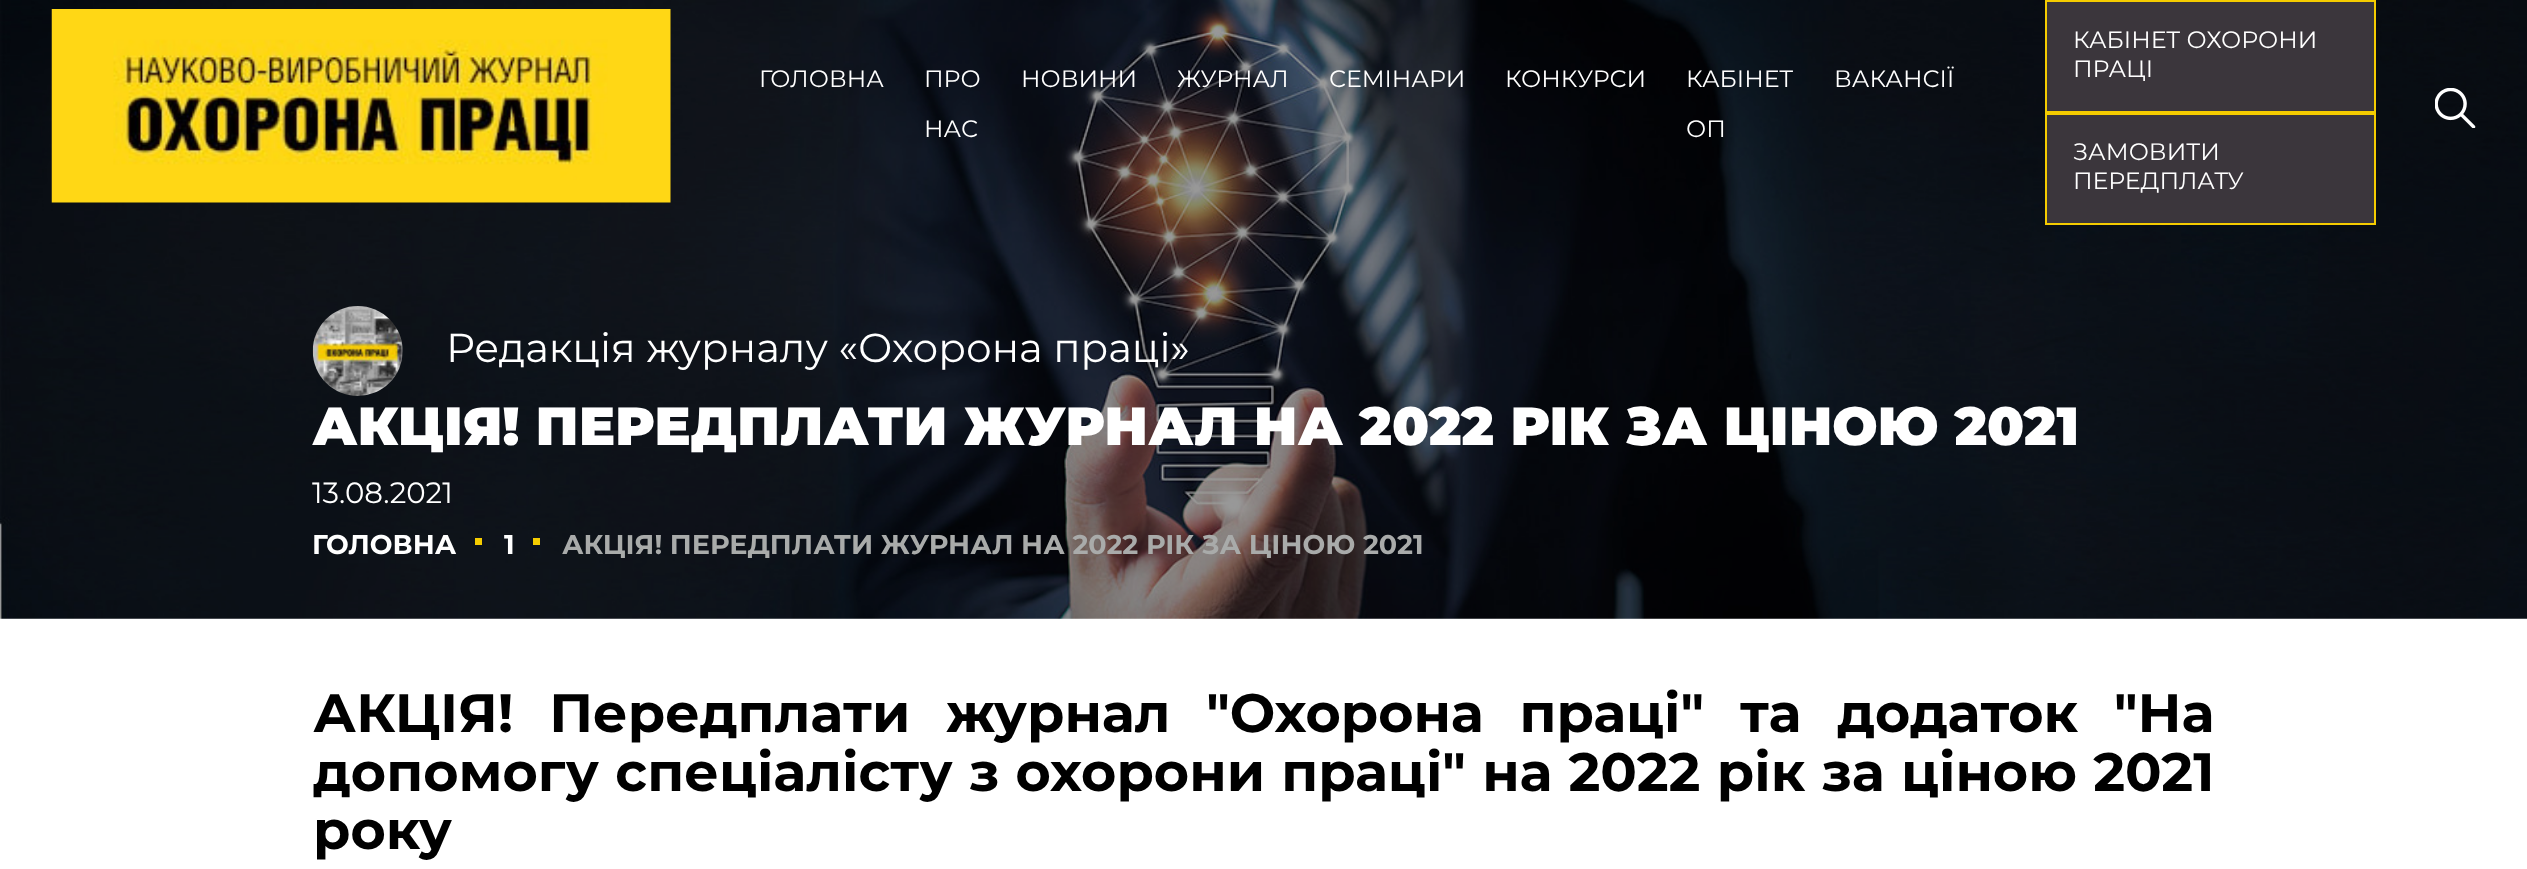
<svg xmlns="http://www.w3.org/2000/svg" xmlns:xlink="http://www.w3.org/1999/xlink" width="2527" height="869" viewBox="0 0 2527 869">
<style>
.cls-1{font:23.75px Montserrat;fill:#ffffff}
.cls-2{font:40.5px Montserrat;fill:#ffffff}
.cls-3{font:900 53.75px Montserrat;fill:#ffffff}
.cls-4{font:29.25px Montserrat;fill:#ffffff}
.cls-5{font:bold 27px Montserrat;fill:#ffffff}
.cls-6{font:bold 27px Montserrat;fill:#a9abaa}
.cls-7{font:bold 54px Montserrat;fill:#000000}
</style>
<rect width="100%" height="100%" fill="#ffffff"/>
<image xlink:href="image2.png" x="0" y="0" width="2527" height="619"/>
<image xlink:href="image0.png" x="51" y="9" width="620" height="194"/>
<rect fill="#3b363c" stroke="#f5cc00" stroke-width="2" x="2046" y="1" width="329" height="111"/>
<rect fill="#3b363c" stroke="#f5cc00" stroke-width="2" x="2046" y="114" width="329" height="110"/>
<image xlink:href="image1.png" x="2435" y="88" width="41" height="40"/>
<image xlink:href="image3.png" x="312" y="306" width="91" height="90"/>
<rect fill="#f5cc00" x="475" y="538" width="7" height="7"/>
<rect fill="#f5cc00" x="533" y="538" width="7" height="7"/>
<text class="cls-1" x="759" y="87">ГОЛОВНА</text>
<text class="cls-1" x="924" y="87">ПРО</text>
<text class="cls-1" x="924" y="137">НАС</text>
<text class="cls-1" x="1021" y="87">НОВИНИ</text>
<text class="cls-1" x="1177" y="87">ЖУРНАЛ</text>
<text class="cls-1" x="1329" y="87">СЕМІНАРИ</text>
<text class="cls-1" x="1505" y="87">КОНКУРСИ</text>
<text class="cls-1" x="1686" y="87">КАБІНЕТ</text>
<text class="cls-1" x="1686" y="137">ОП</text>
<text class="cls-1" x="1834" y="87">ВАКАНСІЇ</text>
<text class="cls-1"><tspan x="2073" y="48">КАБІНЕТ ОХОРОНИ</tspan><tspan x="2073" y="77">ПРАЦІ</tspan></text>
<text class="cls-1"><tspan x="2073" y="160">ЗАМОВИТИ</tspan><tspan x="2073" y="189">ПЕРЕДПЛАТУ</tspan></text>
<text class="cls-2" x="446" y="362">Редакція журналу «Охорона праці»</text>
<text class="cls-3" x="312" y="445">АКЦІЯ! ПЕРЕДПЛАТИ ЖУРНАЛ НА 2022 РІК ЗА ЦІНОЮ 2021</text>
<text class="cls-4" x="312" y="503">13.08.2021</text>
<text class="cls-5" x="312" y="554">ГОЛОВНА</text>
<text class="cls-5" x="504" y="554">1</text>
<text class="cls-6" x="562" y="554">АКЦІЯ! ПЕРЕДПЛАТИ ЖУРНАЛ НА 2022 РІК ЗА ЦІНОЮ 2021</text>
<text class="cls-7"><tspan x="313" y="732" word-spacing="20.5">АКЦІЯ! Передплати журнал "Охорона праці" та додаток "На</tspan><tspan x="313" y="791" word-spacing="1">допомогу спеціалісту з охорони праці" на 2022 рік за ціною 2021</tspan><tspan x="313" y="849">року</tspan></text>
</svg>
